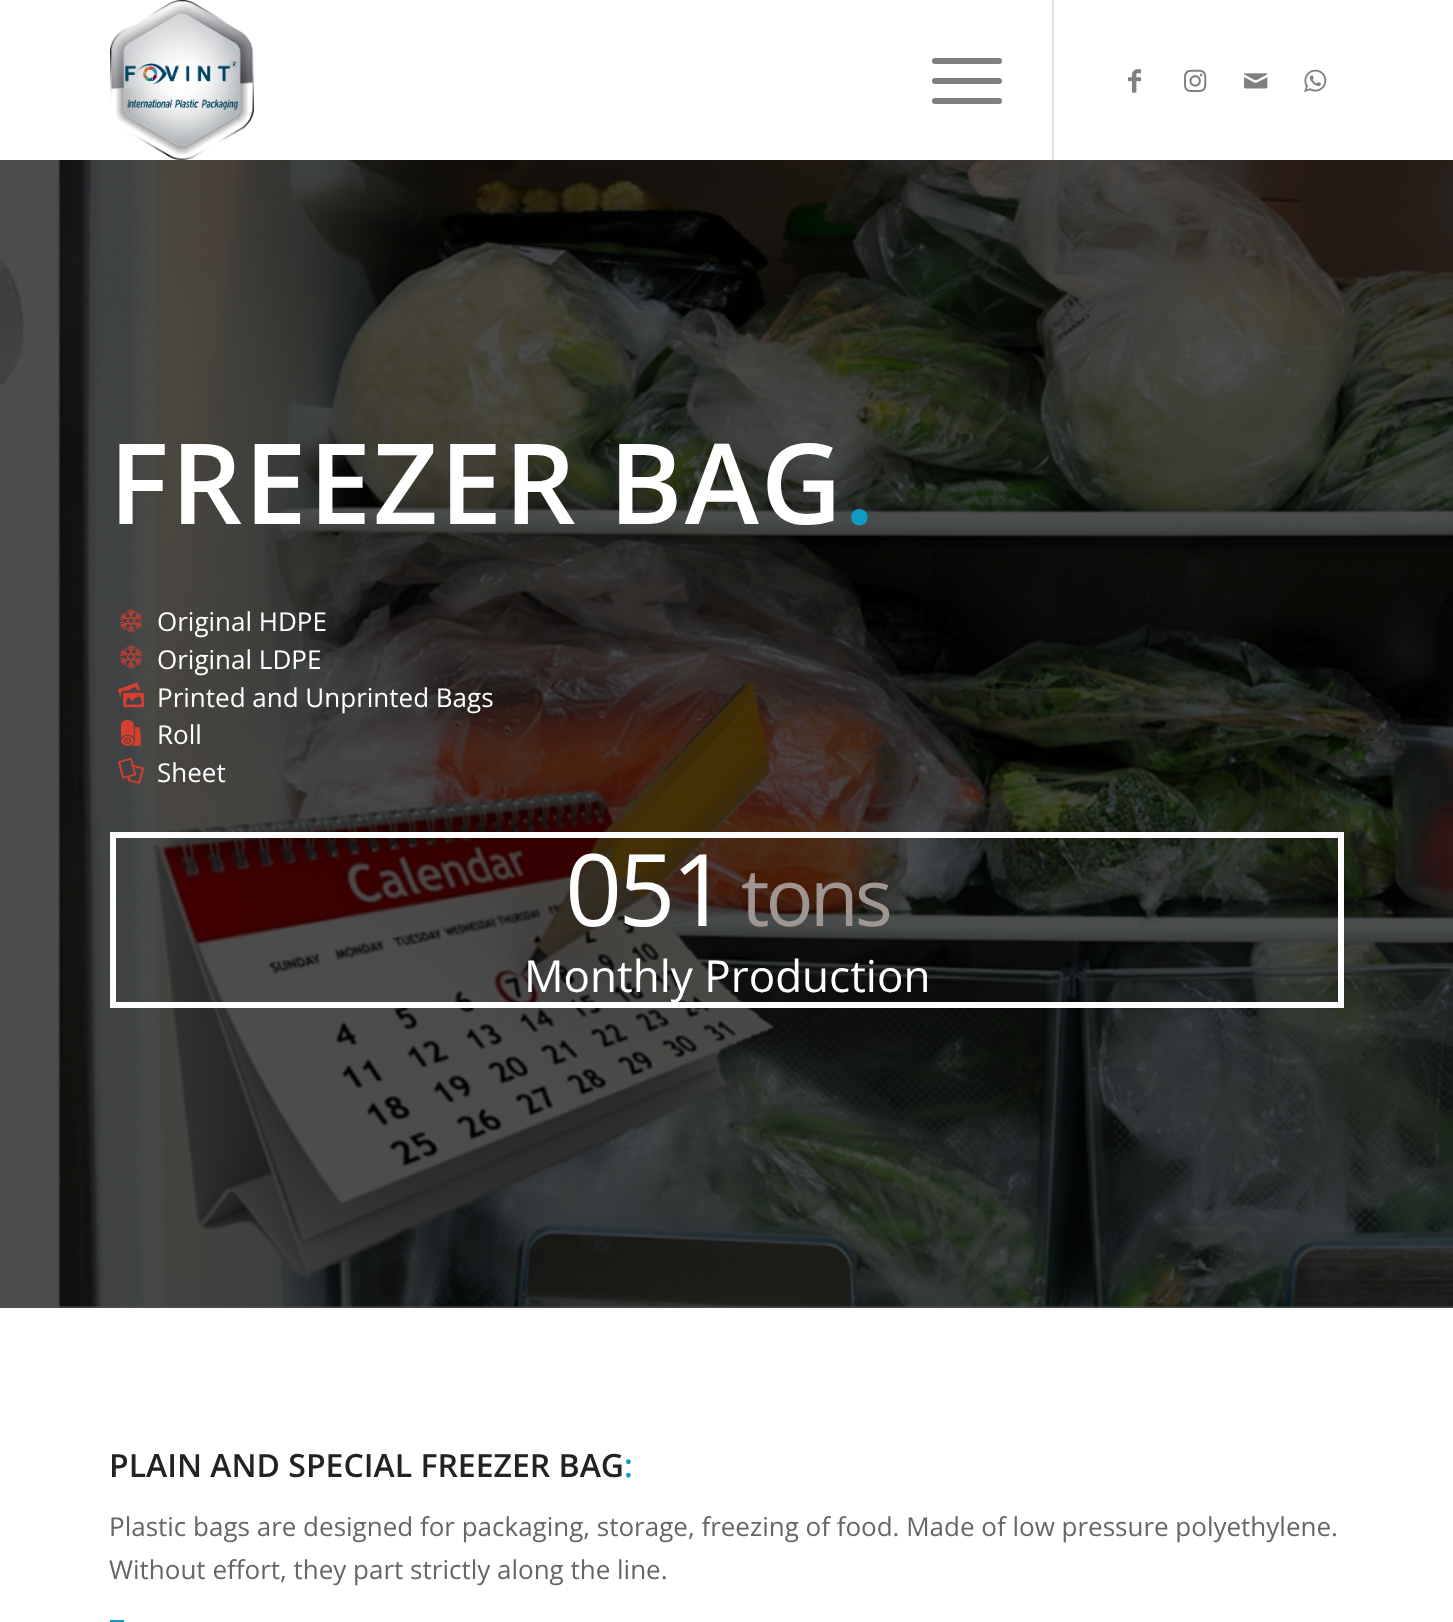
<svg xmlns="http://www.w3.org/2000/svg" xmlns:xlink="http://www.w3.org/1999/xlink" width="1453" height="1622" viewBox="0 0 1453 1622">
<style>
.cls-1{font:600 112px Open Sans;letter-spacing:2px;fill:#ffffff}
.cls-2{font:600 112px Open Sans;letter-spacing:2px;fill:#109bc5}
.cls-3{font:26px Open Sans;fill:#ffffff}
.cls-4{font:100px Open Sans;letter-spacing:-4px;fill:#ffffff}
.cls-5{font:80px Open Sans;letter-spacing:-4px;fill:#a09691}
.cls-6{font:44px Open Sans;fill:#ffffff}
.cls-7{font:600 32px Open Sans;fill:#222222}
.cls-8{font:600 32px Open Sans;fill:#109bc5}
.cls-9{font:26px Open Sans;fill:#666666}
</style>
<defs>
<clipPath id="clip1"><rect x="116" y="946" width="1222" height="56"/></clipPath>
</defs>
<rect width="100%" height="100%" fill="#ffffff"/>
<image xlink:href="image0.png" x="110" y="0" width="144" height="160"/>
<rect fill="#e1e1e1" x="1052" y="0" width="2" height="160"/>
<rect fill="#808080" x="932" y="78" width="70" height="6" rx="3"/>
<rect fill="#808080" x="932" y="58" width="70" height="6" rx="3"/>
<rect fill="#808080" x="932" y="98" width="70" height="6" rx="3"/>
<image xlink:href="image1.png" x="1128" y="69" width="13" height="24"/>
<image xlink:href="image2.png" x="1184" y="69" width="23" height="24"/>
<image xlink:href="image3.png" x="1244" y="73" width="24" height="16"/>
<image xlink:href="image4.png" x="1304" y="69" width="23" height="23"/>
<image xlink:href="image5.png" x="0" y="160" width="1453" height="1148"/>
<image xlink:href="image6.png" x="120" y="609" width="22" height="24"/>
<image xlink:href="image7.png" x="120" y="645" width="22" height="24"/>
<image xlink:href="image8.png" x="118" y="682" width="26" height="26"/>
<image xlink:href="image9.png" x="121" y="719" width="20" height="27"/>
<image xlink:href="image10.png" x="118" y="757" width="26" height="27"/>
<rect fill="none" stroke="#ffffff" stroke-width="6" x="113" y="835" width="1228" height="170"/>
<rect fill="#109bc5" x="110" y="1620" width="14" height="2"/>
<text class="cls-1" x="109" y="524">FREEZER BAG</text>
<text class="cls-2" x="844" y="524">.</text>
<text class="cls-3"><tspan x="157" y="631">Original HDPE</tspan><tspan x="157" y="669">Original LDPE</tspan><tspan x="157" y="707">Printed and Unprinted Bags</tspan><tspan x="157" y="744">Roll</tspan><tspan x="157" y="782">Sheet</tspan></text>
<text class="cls-4" x="565" y="926">051</text>
<text class="cls-5" x="741" y="926">tons</text>
<g clip-path="url(#clip1)">
<text class="cls-6" x="524" y="992">Monthly Production</text>
</g>
<text class="cls-7" x="109" y="1477">PLAIN AND SPECIAL FREEZER BAG</text>
<text class="cls-8" x="624" y="1477">:</text>
<text class="cls-9"><tspan x="109" y="1536">Plastic bags are designed for packaging, storage, freezing of food. Made of low pressure polyethylene.</tspan><tspan x="109" y="1579">Without effort, they part strictly along the line.</tspan></text>
</svg>
